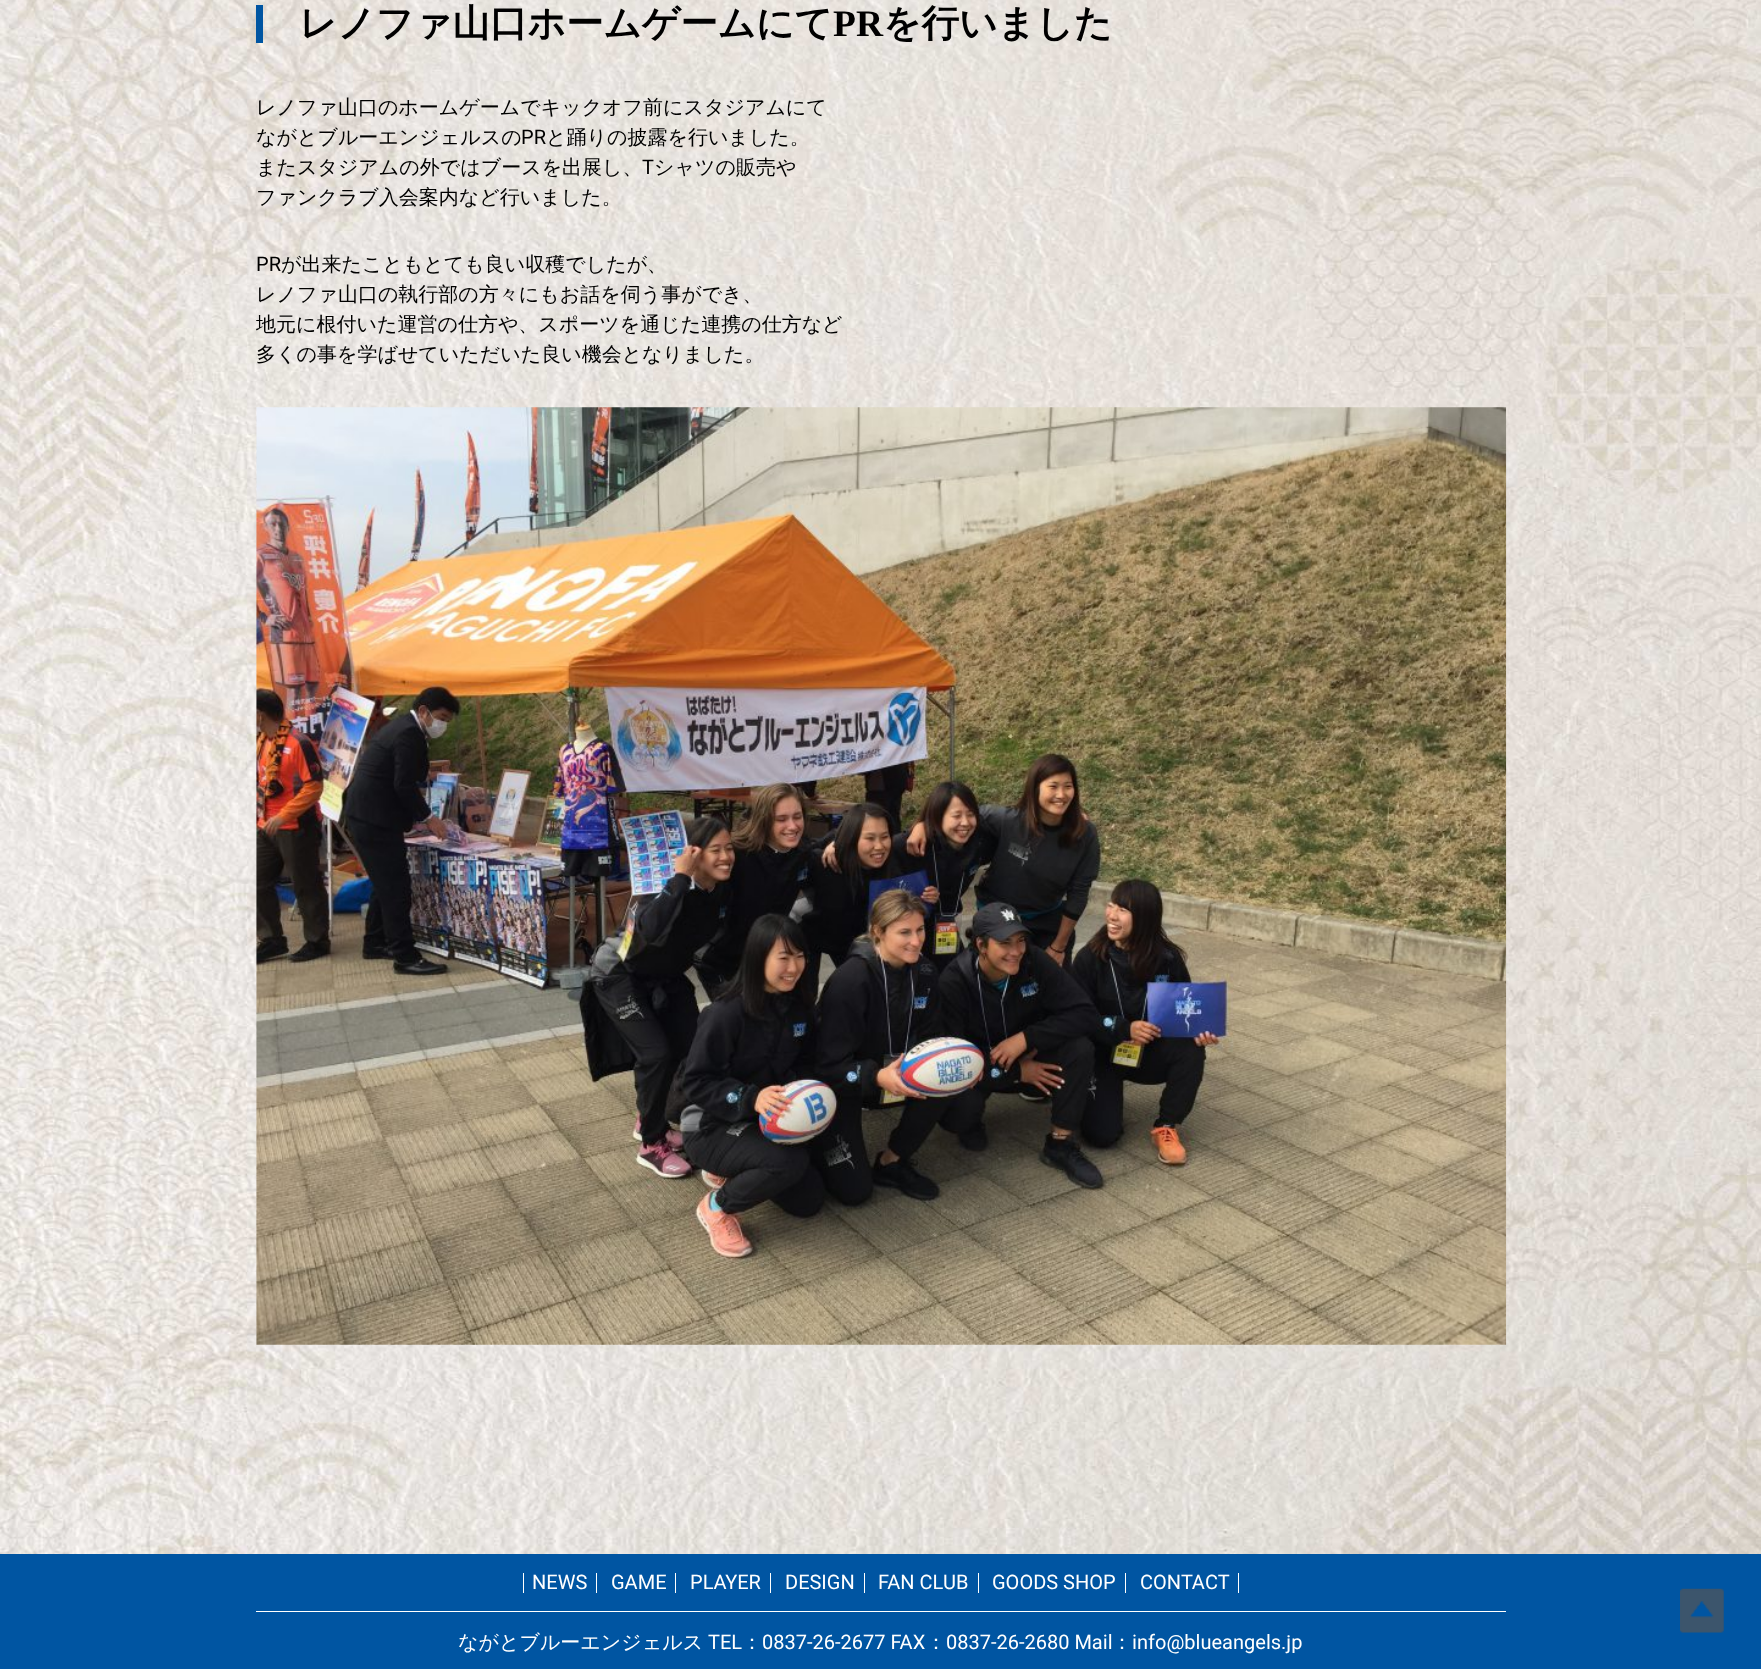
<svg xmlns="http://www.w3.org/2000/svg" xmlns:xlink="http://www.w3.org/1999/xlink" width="1761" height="1669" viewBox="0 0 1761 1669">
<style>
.cls-1{font:bold 37.5px WenQuanYi Zen Hei;fill:#000000}
.cls-2{font:bold 37.5px Liberation Serif;fill:#000000}
.cls-3{font:500 20px WenQuanYi Zen Hei;fill:#000000}
.cls-4{font:20px Heebo;fill:#000000}
.cls-5{font:20px Heebo;fill:#ffffff}
.cls-6{font:500 20px WenQuanYi Zen Hei;fill:#ffffff}
</style>
<rect width="100%" height="100%" fill="#ffffff"/>
<image xlink:href="image0.png" x="0" y="0" width="1761" height="1554"/>
<rect fill="#0055a2" x="256" y="5" width="7" height="38"/>
<image xlink:href="image1.png" x="256" y="407" width="1251" height="938"/>
<rect fill="#0055a2" x="0" y="1554" width="1761" height="115"/>
<rect fill="#ffffff" x="256" y="1611" width="1250" height="1"/>
<rect fill="#ffffff" x="596" y="1573" width="1" height="20"/>
<rect fill="#ffffff" x="523" y="1573" width="1" height="20"/>
<rect fill="#ffffff" x="675" y="1573" width="1" height="20"/>
<rect fill="#ffffff" x="770" y="1573" width="1" height="20"/>
<rect fill="#ffffff" x="864" y="1573" width="1" height="20"/>
<rect fill="#ffffff" x="978" y="1573" width="1" height="20"/>
<rect fill="#ffffff" x="1125" y="1573" width="1" height="20"/>
<rect fill="#ffffff" x="1238" y="1573" width="1" height="20"/>
<image xlink:href="image2.png" x="1680" y="1588" width="44" height="45"/>
<text class="cls-1" x="299" y="36">レノファ山口ホームゲームにて</text>
<text class="cls-2" x="833" y="36">PR</text>
<text class="cls-1" x="883" y="36">を行いました</text>
<text class="cls-3"><tspan x="256" y="114">レノファ山口のホームゲームでキックオフ前にスタジアムにて</tspan><tspan x="256" y="144">ながとブルーエンジェルスの</tspan></text>
<text class="cls-4" x="521" y="144">PR</text>
<text class="cls-3" x="546" y="144">と踊りの披露を行いました。</text>
<text class="cls-3" x="256" y="174">またスタジアムの外ではブースを出展し、</text>
<text class="cls-4" x="642" y="174">T</text>
<text class="cls-3" x="654" y="174">シャツの販売や</text>
<text class="cls-3" x="256" y="204">ファンクラブ入会案内など行いました。</text>
<text class="cls-4" x="256" y="271">PR</text>
<text class="cls-3" x="281" y="271">が出来たこともとても良い収穫でしたが、</text>
<text class="cls-3"><tspan x="256" y="301">レノファ山口の執行部の方々にもお話を伺う事ができ、</tspan><tspan x="256" y="331">地元に根付いた運営の仕方や、スポーツを通じた連携の仕方など</tspan><tspan x="256" y="361">多くの事を学ばせていただいた良い機会となりました。</tspan></text>
<text class="cls-5" x="532" y="1589">NEWS</text>
<text class="cls-5" x="611" y="1589">GAME</text>
<text class="cls-5" x="690" y="1589">PLAYER</text>
<text class="cls-5" x="785" y="1589">DESIGN</text>
<text class="cls-5" x="878" y="1589">FAN CLUB</text>
<text class="cls-5" x="992" y="1589">GOODS SHOP</text>
<text class="cls-5" x="1140" y="1589">CONTACT</text>
<text class="cls-6" x="458" y="1649">ながとブルーエンジェルス</text>
<text class="cls-5" x="708" y="1649">TEL</text>
<text class="cls-6" x="742" y="1649">：</text>
<text class="cls-5" x="762" y="1649">0837-26-2677 FAX</text>
<text class="cls-6" x="926" y="1649">：</text>
<text class="cls-5" x="946" y="1649">0837-26-2680 Mail</text>
<text class="cls-6" x="1112" y="1649">：</text>
<text class="cls-5" x="1132" y="1649">info@blueangels.jp</text>
</svg>
